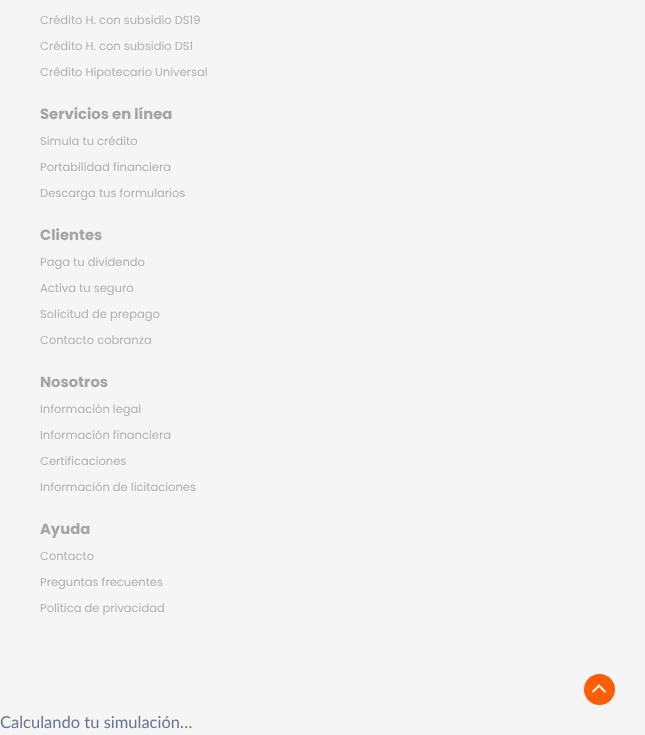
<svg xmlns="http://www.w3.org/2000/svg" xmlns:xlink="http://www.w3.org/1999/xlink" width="645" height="735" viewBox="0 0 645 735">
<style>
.cls-1{font:11.5px Poppins;fill:#afafaf}
.cls-2{font:bold 14.75px Poppins;fill:#a4a4a4}
.cls-3{font:16.5px Lato;fill:#67768e}
</style>
<rect width="100%" height="100%" fill="#f5f5f5"/>
<circle fill="#fd5d03" cx="599.5" cy="689.5" r="15.5"/>
<image xlink:href="image0.png" x="592" y="684" width="15" height="9"/>
<text class="cls-1" x="40" y="24">Crédito H. con subsidio DS19</text>
<text class="cls-1" x="40" y="50">Crédito H. con subsidio DS1</text>
<text class="cls-1" x="40" y="76">Crédito Hipotecario Universal</text>
<text class="cls-2" x="40" y="119">Servicios en línea</text>
<text class="cls-1" x="40" y="145">Simula tu crédito</text>
<text class="cls-1" x="40" y="171">Portabilidad financiera</text>
<text class="cls-1" x="40" y="197">Descarga tus formularios</text>
<text class="cls-2" x="40" y="240">Clientes</text>
<text class="cls-1" x="40" y="266">Paga tu dividendo</text>
<text class="cls-1" x="40" y="292">Activa tu seguro</text>
<text class="cls-1" x="40" y="318">Solicitud de prepago</text>
<text class="cls-1" x="40" y="344">Contacto cobranza</text>
<text class="cls-2" x="40" y="387">Nosotros</text>
<text class="cls-1" x="40" y="413">Información legal</text>
<text class="cls-1" x="40" y="439">Información financiera</text>
<text class="cls-1" x="40" y="465">Certificaciones</text>
<text class="cls-1" x="40" y="491">Información de licitaciones</text>
<text class="cls-2" x="40" y="534">Ayuda</text>
<text class="cls-1" x="40" y="560">Contacto</text>
<text class="cls-1" x="40" y="586">Preguntas frecuentes</text>
<text class="cls-1" x="40" y="612">Política de privacidad</text>
<text class="cls-3" x="0" y="728">Calculando tu simulación…</text>
</svg>
